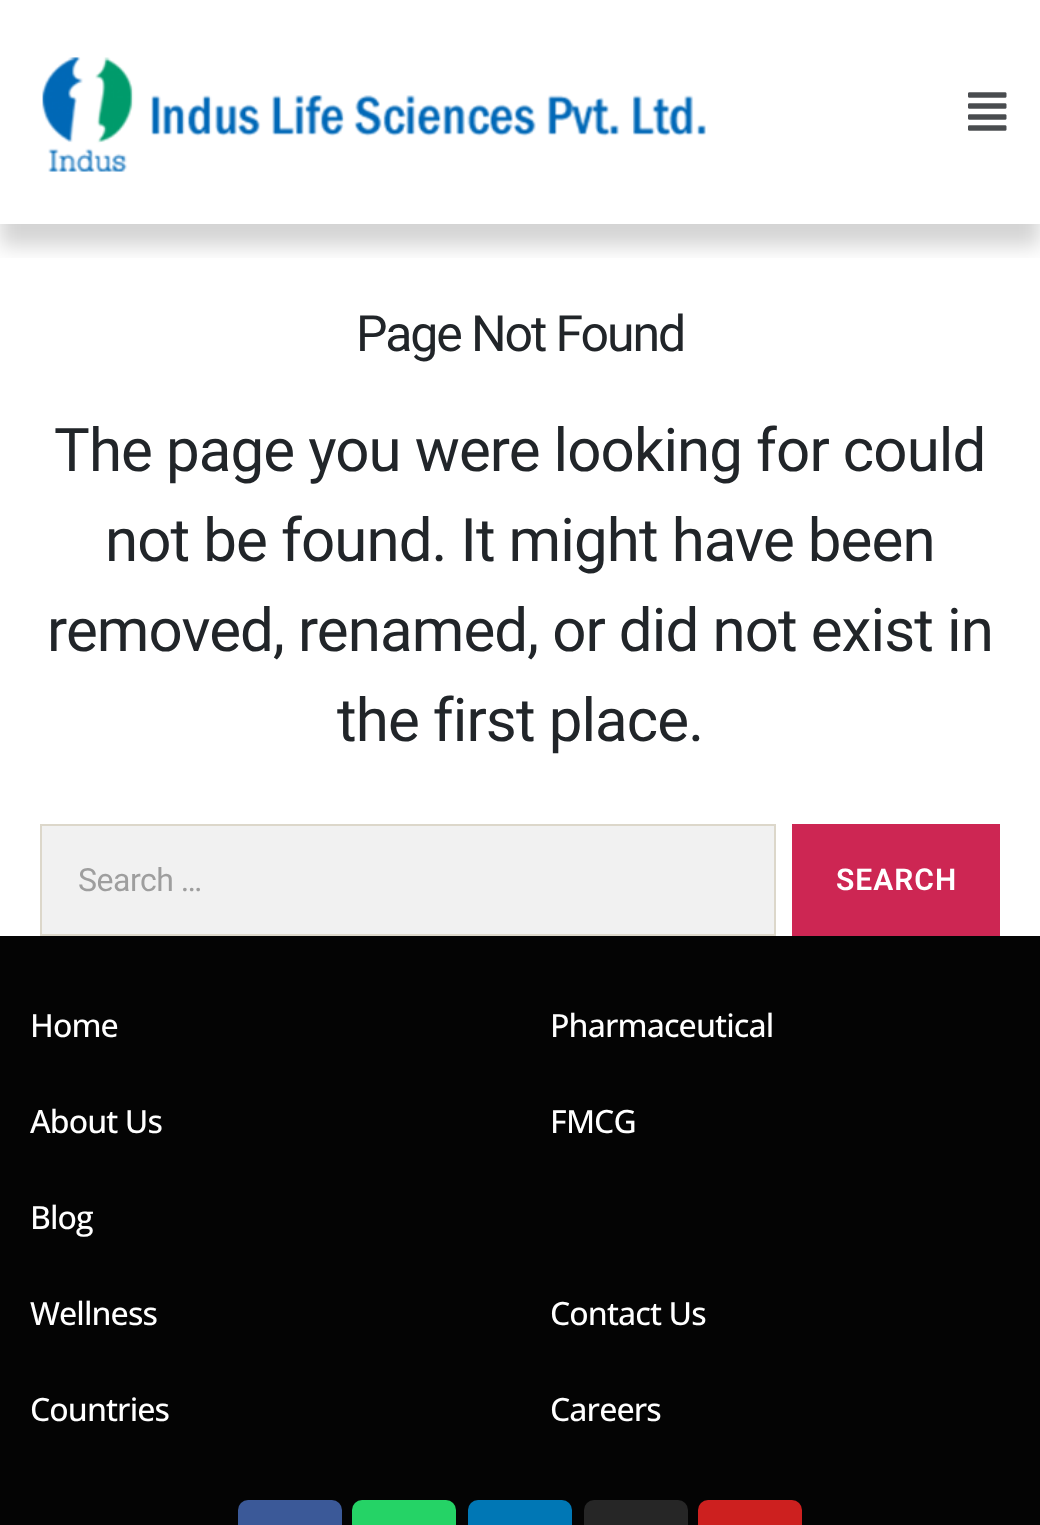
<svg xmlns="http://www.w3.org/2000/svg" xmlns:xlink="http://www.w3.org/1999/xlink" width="1040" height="1525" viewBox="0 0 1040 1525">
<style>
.cls-1{font:50px Roboto;letter-spacing:-2.1px;fill:#212529}
.cls-2{font:60px Roboto;letter-spacing:-0.9px;fill:#212529}
.cls-3{font:32px Roboto;letter-spacing:-0.5px;fill:#9e9e9e}
.cls-4{font:600 30px Roboto;letter-spacing:1px;fill:#ffffff}
.cls-5{font:500 32px Open Sans;letter-spacing:-0.9px;fill:#ffffff}
</style>
<defs>
<clipPath id="clip1"><rect x="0" y="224" width="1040" height="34"/></clipPath>
</defs>
<rect width="100%" height="100%" fill="#ffffff"/>
<g clip-path="url(#clip1)">
<rect fill="#000000" fill-opacity="0.17" filter="blur(10px)" x="0" y="24" width="1040" height="222"/>
</g>
<image xlink:href="image0.png" x="42" y="57" width="664" height="115"/>
<image xlink:href="image1.png" x="968" y="92" width="39" height="39"/>
<rect fill="#f1f1f1" stroke="#dcd7ca" stroke-width="2" x="41" y="825" width="734" height="110"/>
<rect fill="#cd2653" x="792" y="824" width="208" height="112"/>
<rect fill="#040404" x="0" y="936" width="1040" height="589"/>
<rect fill="#3b5998" x="238" y="1500" width="104" height="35" rx="10"/>
<rect fill="#25d366" x="352" y="1500" width="104" height="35" rx="10"/>
<rect fill="#0077b5" x="468" y="1500" width="104" height="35" rx="10"/>
<rect fill="#262626" x="584" y="1500" width="104" height="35" rx="10"/>
<rect fill="#cd201f" x="698" y="1500" width="104" height="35" rx="10"/>
<text class="cls-1" x="356" y="351">Page Not Found</text>
<text class="cls-2" x="54" y="471">The page you were looking for could</text>
<text class="cls-2" x="105" y="561">not be found. It might have been</text>
<text class="cls-2" x="47" y="651">removed, renamed, or did not exist in</text>
<text class="cls-2" x="337" y="741">the first place.</text>
<text class="cls-3" x="78" y="891">Search …</text>
<text class="cls-4" x="836" y="890">SEARCH</text>
<text class="cls-5" x="30" y="1037">Home</text>
<text class="cls-5" x="30" y="1133">About Us</text>
<text class="cls-5" x="30" y="1229">Blog</text>
<text class="cls-5" x="550" y="1037">Pharmaceutical</text>
<text class="cls-5" x="550" y="1133">FMCG</text>
<text class="cls-5" x="30" y="1325">Wellness</text>
<text class="cls-5" x="30" y="1421">Countries</text>
<text class="cls-5" x="550" y="1325">Contact Us</text>
<text class="cls-5" x="550" y="1421">Careers</text>
</svg>
